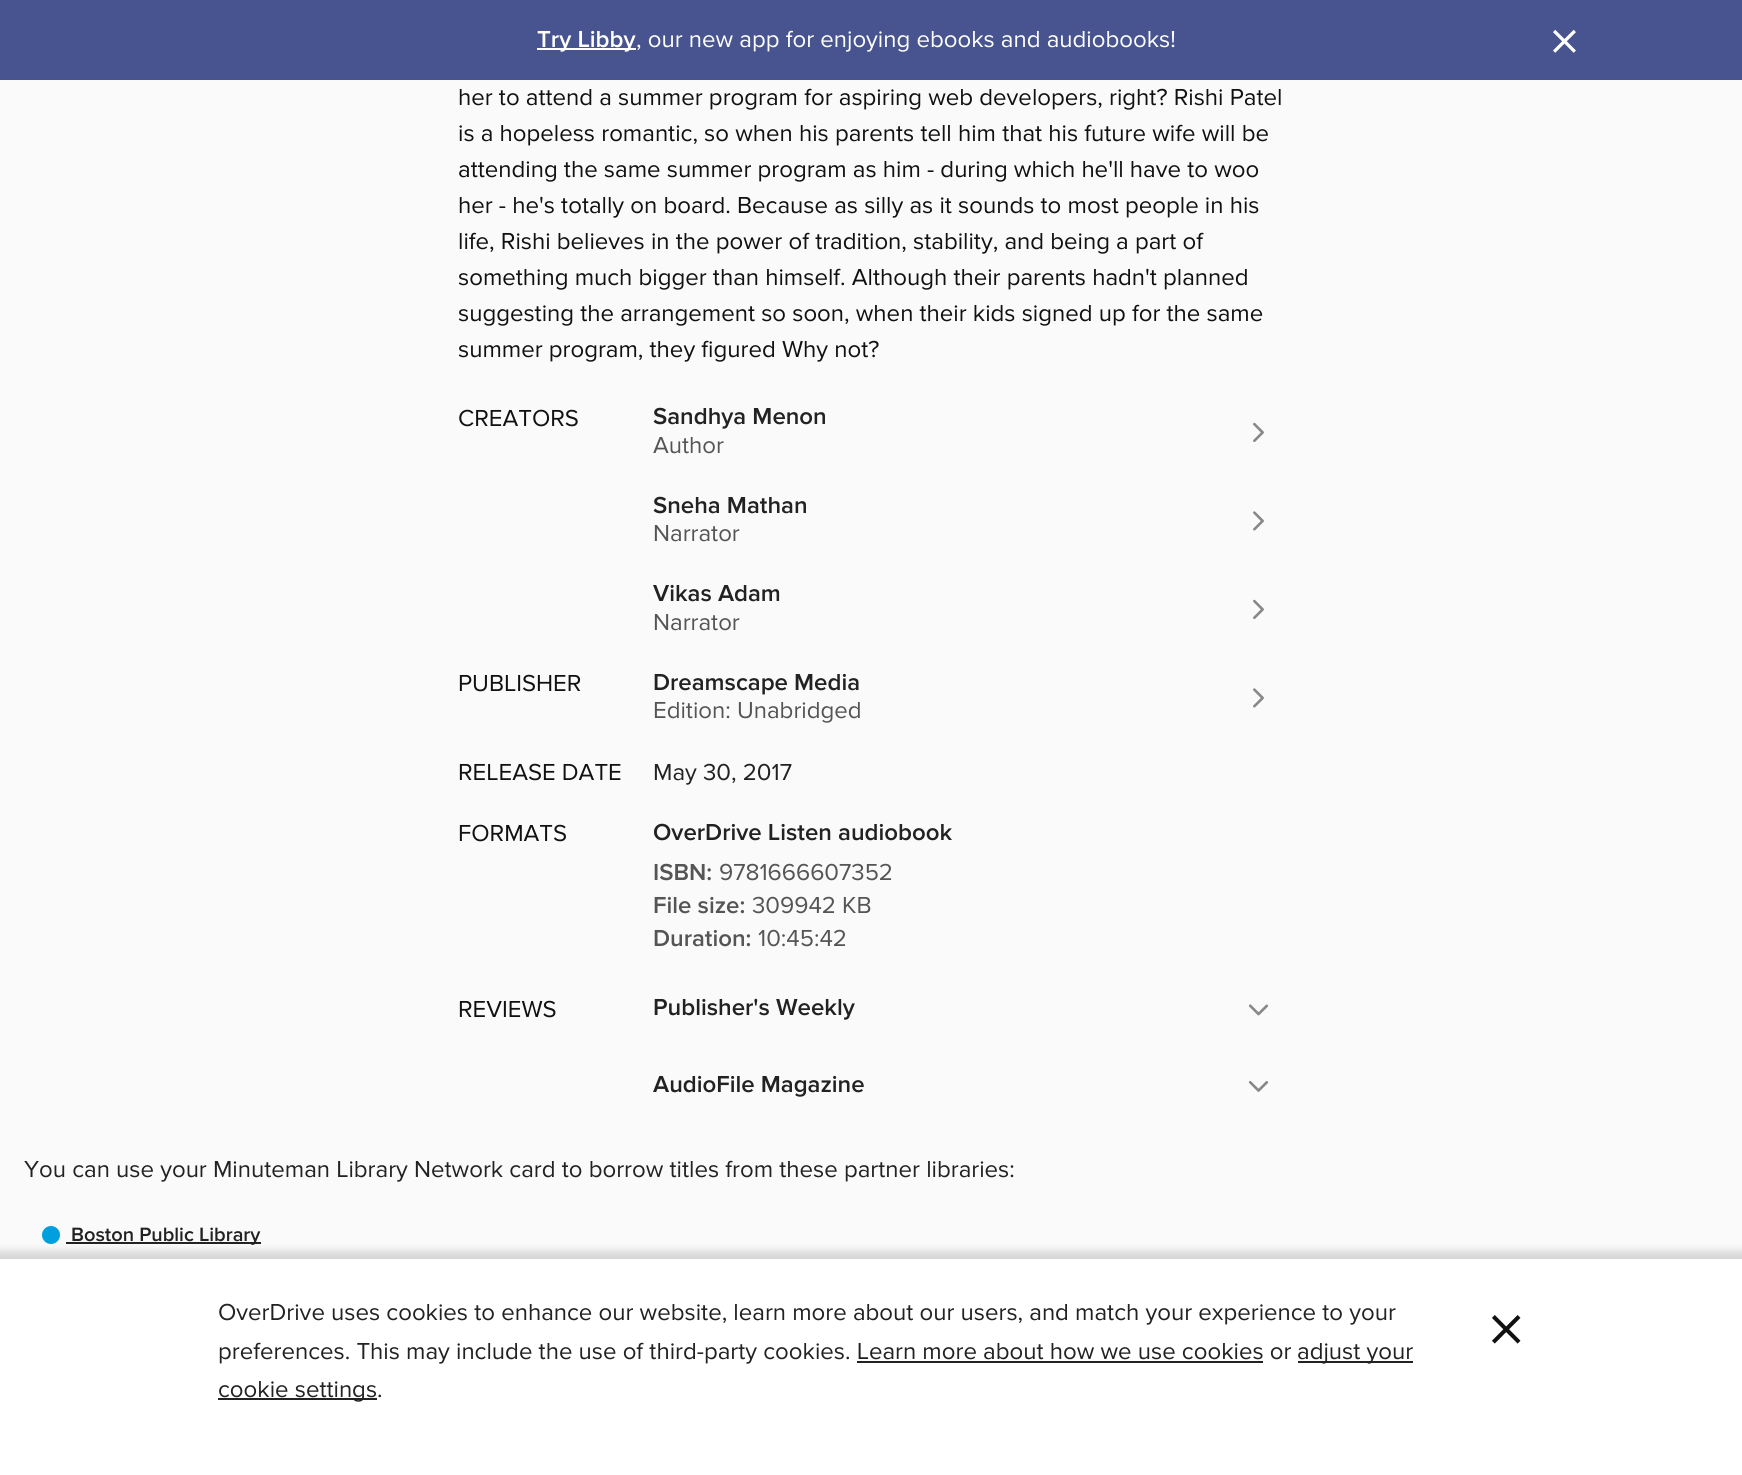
#include <cairo.h>
#include <math.h>
#include <stddef.h>

static cairo_t *c;
static void C(unsigned color){cairo_set_source_rgb(c, (color >> 16) / 255.0, (color >> 8 & 255) / 255.0, (color & 255) / 255.0);}
static void F(const char *family, double size, int italic, int bold){cairo_select_font_face(c, family, italic ? CAIRO_FONT_SLANT_ITALIC : CAIRO_FONT_SLANT_NORMAL,bold ? CAIRO_FONT_WEIGHT_BOLD : CAIRO_FONT_WEIGHT_NORMAL);cairo_set_font_size(c, size);}
static void T(double x, double y, const char *s){cairo_move_to(c, x, y);cairo_show_text(c, s);}
static void R(double x, double y, double w, double h){cairo_rectangle(c, x, y, w, h);cairo_fill(c);}
static void Q(double x, double y, double w, double h, double r){cairo_new_sub_path(c);cairo_arc(c, x + w - r, y + h - r, r, 0, M_PI / 2);cairo_arc(c, x + r, y + h - r, r, M_PI / 2, M_PI);cairo_arc(c, x + r, y + r, r, M_PI, 1.5 * M_PI);cairo_arc(c, x + w - r, y + r, r, 1.5 * M_PI, 2 * M_PI);cairo_close_path(c);}
static void S(double x, double y, double w, double h, double r, double blur, double alpha){cairo_push_group_with_content(c, CAIRO_CONTENT_ALPHA);cairo_set_operator(c, CAIRO_OPERATOR_SOURCE);for (int i = 15; i >= -15 && fmin(w, h) + blur * i / 3 > 0; i -= 2) {double e = blur * i / 6;cairo_set_source_rgba(c, 0, 0, 0, alpha * erfc((i - 1) / 8.5) / 2);Q(x - e, y - e, w + 2 * e, h + 2 * e, fmax(0, fmin(r + e + blur * .6, fmin(w, h) / 2 + e)));cairo_fill(c);}cairo_pattern_t *soft = cairo_pop_group(c);cairo_mask(c, soft);cairo_pattern_destroy(soft);}
static void I(const char *path, double x, double y, double w, double h){cairo_surface_t *image = cairo_image_surface_create_from_png(path);cairo_save(c);cairo_set_source_surface(c, image, x, y);cairo_rectangle(c, x, y, w, h);cairo_fill(c);cairo_restore(c);cairo_surface_destroy(image);}
int main(void) {
cairo_surface_t *surface = cairo_image_surface_create(CAIRO_FORMAT_RGB24, 1742, 1475);
c = cairo_create(surface);
cairo_font_options_t *options = cairo_font_options_create();
cairo_font_options_set_hint_metrics(options, CAIRO_HINT_METRICS_OFF);
cairo_font_options_set_hint_style(options, CAIRO_HINT_STYLE_NONE);
cairo_set_font_options(c, options);
cairo_set_miter_limit(c, 4);
C(0xfafafa);
cairo_paint(c);
C(0x47548f);
R(0,0,1742,80);
C(0xffffff);
R(537,48,99,2);
F("Proxima Nova SemiBold",24,0,0);
T(537,47,"Try Libby");
F("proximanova",24,0,0);
T(636,47,", our new app for enjoying ebooks and audiobooks!");
F("proximanova",62,0,0);
T(1549,62,"×");
F("proximanova",24,0,0);
C(0x111111);
T(458,105,"her to attend a summer program for aspiring web developers, right? Rishi Patel");
T(458,141,"is a hopeless romantic, so when his parents tell him that his future wife will be");
T(458,177,"attending the same summer program as him - during which he'll have to woo");
T(458,213,"her - he's totally on board. Because as silly as it sounds to most people in his");
T(458,249,"life, Rishi believes in the power of tradition, stability, and being a part of");
T(458,285,"something much bigger than himself. Although their parents hadn't planned");
T(458,321,"suggesting the arrangement so soon, when their kids signed up for the same");
T(458,357,"summer program, they figured Why not?");
T(458,426,"CREATORS");
F("Proxima Nova SemiBold",24,0,0);
C(0x222222);
T(653,424,"Sandhya Menon");
F("proximanova",24,0,0);
C(0x555555);
T(653,453,"Author");
I("1.png",1253,422,11,20);
F("Proxima Nova SemiBold",24,0,0);
C(0x222222);
T(653,513,"Sneha Mathan");
F("proximanova",24,0,0);
C(0x555555);
T(653,541,"Narrator");
I("2.png",1253,511,11,20);
F("Proxima Nova SemiBold",24,0,0);
C(0x222222);
T(653,601,"Vikas Adam");
F("proximanova",24,0,0);
C(0x555555);
T(653,630,"Narrator");
I("1.png",1253,599,11,20);
C(0x111111);
T(458,691,"PUBLISHER");
F("Proxima Nova SemiBold",24,0,0);
C(0x222222);
T(653,690,"Dreamscape Media");
F("proximanova",24,0,0);
C(0x555555);
T(653,718,"Edition: Unabridged");
I("2.png",1253,688,11,20);
C(0x111111);
T(458,780,"RELEASE DATE");
C(0x222222);
T(653,780,"May 30, 2017");
C(0x111111);
T(458,841,"FORMATS");
F("Proxima Nova SemiBold",24,0,0);
C(0x222222);
T(653,840,"OverDrive Listen audiobook");
C(0x555555);
T(653,880,"ISBN:");
F("proximanova",24,0,0);
T(719,880,"9781666607352");
F("Proxima Nova SemiBold",24,0,0);
T(653,913,"File size:");
F("proximanova",24,0,0);
T(752,913,"309942 KB");
F("Proxima Nova SemiBold",24,0,0);
T(653,946,"Duration:");
F("proximanova",24,0,0);
T(758,946,"10:45:42");
C(0x111111);
T(458,1017,"REVIEWS");
F("Proxima Nova SemiBold",24,0,0);
C(0x222222);
T(653,1015,"Publisher's Weekly");
I("3.png",1248,1004,21,12);
T(653,1092,"AudioFile Magazine");
I("4.png",1248,1081,21,11);
F("proximanova",24,0,0);
T(24,1177,"You can use your Minuteman Library Network card to borrow titles from these partner libraries:");
C(0x009fde);
cairo_new_path(c);
cairo_arc(c,51,1235,9,0,2 * M_PI);
cairo_fill(c);
C(0x222222);
R(66,1242,195,2);
F("Proxima Nova SemiBold",20,0,0);
T(71,1241,"Boston Public Library");
C(0x000000);
S(-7,1251,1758,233,0,4,.15);
C(0xffffff);
R(0,1259,1742,216);
F("proximanova",24,0,0);
C(0x222222);
T(218,1320,"OverDrive uses cookies to enhance our website, learn more about our users, and match your experience to your");
T(218,1359,"preferences. This may include the use of third-party cookies. Learn more about how we use cookies or");
R(857,1361,406,2);
R(1298,1361,115,2);
T(1297,1359,"adjust your");
R(218,1398,159,2);
T(218,1397,"cookie settings.");
F("proximanova",77,0,0);
C(0x111111);
T(1487,1355,"×");
cairo_surface_write_to_png(surface, "o.png");
cairo_font_options_destroy(options);
cairo_destroy(c);
cairo_surface_destroy(surface);
return 0;
}
